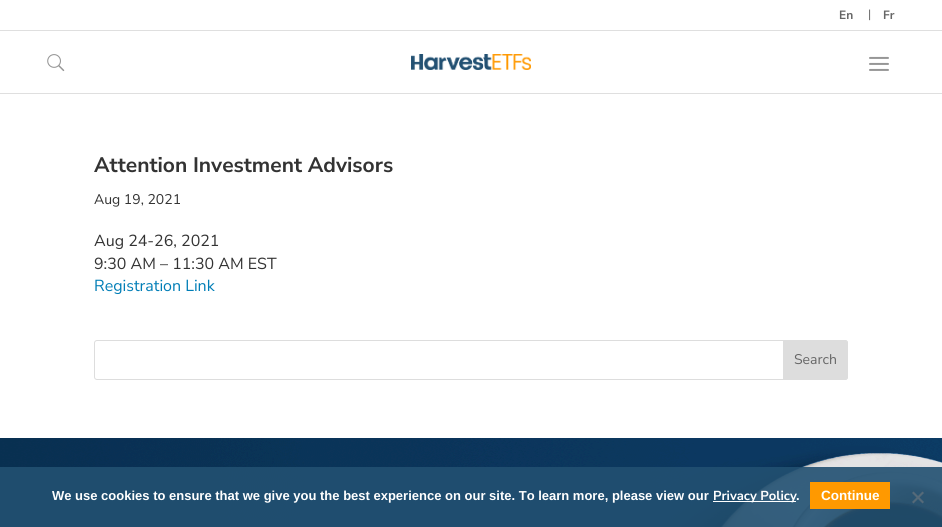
#include <cairo.h>
#include <math.h>
#include <stddef.h>

static cairo_t *c;
static void C(unsigned color){cairo_set_source_rgb(c, (color >> 16) / 255.0, (color >> 8 & 255) / 255.0, (color & 255) / 255.0);}
static void F(const char *family, double size, int italic, int bold){cairo_select_font_face(c, family, italic ? CAIRO_FONT_SLANT_ITALIC : CAIRO_FONT_SLANT_NORMAL,bold ? CAIRO_FONT_WEIGHT_BOLD : CAIRO_FONT_WEIGHT_NORMAL);cairo_set_font_size(c, size);}
static void T(double x, double y, const char *s){cairo_move_to(c, x, y);cairo_show_text(c, s);}
static void R(double x, double y, double w, double h){cairo_rectangle(c, x, y, w, h);cairo_fill(c);}
static void Q(double x, double y, double w, double h, double r){cairo_new_sub_path(c);cairo_arc(c, x + w - r, y + h - r, r, 0, M_PI / 2);cairo_arc(c, x + r, y + h - r, r, M_PI / 2, M_PI);cairo_arc(c, x + r, y + r, r, M_PI, 1.5 * M_PI);cairo_arc(c, x + w - r, y + r, r, 1.5 * M_PI, 2 * M_PI);cairo_close_path(c);}
static void I(const char *path, double x, double y, double w, double h){cairo_surface_t *image = cairo_image_surface_create_from_png(path);cairo_save(c);cairo_set_source_surface(c, image, x, y);cairo_rectangle(c, x, y, w, h);cairo_fill(c);cairo_restore(c);cairo_surface_destroy(image);}
int main(void) {
cairo_surface_t *surface = cairo_image_surface_create(CAIRO_FORMAT_RGB24, 942, 527);
c = cairo_create(surface);
cairo_font_options_t *options = cairo_font_options_create();
cairo_font_options_set_hint_metrics(options, CAIRO_HINT_METRICS_OFF);
cairo_font_options_set_hint_style(options, CAIRO_HINT_STYLE_NONE);
cairo_set_font_options(c, options);
cairo_set_miter_limit(c, 4);
C(0xffffff);
cairo_paint(c);
C(0xdfdfdf);
R(0,30,942,1);
F("Nunito Sans",12,0,1);
C(0x666666);
T(839,19,"En");
F("Nunito Sans",12,0,0);
T(868,18,"|");
F("Nunito Sans",12,0,1);
T(883,19,"Fr");
C(0xdfdfdf);
R(0,93,942,1);
I("1.png",47,54,18,18);
I("2.png",869,56,20,15);
I("3.png",411,54,120,16);
F("Nunito Sans",21,0,1);
C(0x333333);
T(94,172,"Attention Investment Advisors");
F("Nunito Sans",14,0,0);
T(94,204,"Aug 19, 2021");
F("Nunito Sans",16,0,0);
T(94,246,"Aug 24-26, 2021");
T(94,269,"9:30 AM – 11:30 AM EST");
C(0x007db6);
T(94,291,"Registration Link");
Q(94.5,340.5,753,39,2.5);
C(0xdddddd);
cairo_set_line_width(c,1);
cairo_stroke(c);
cairo_new_path(c);
cairo_move_to(c,783.5,340.5);
cairo_line_to(c,845,340.5);
cairo_curve_to(c,846.5,340.5,847.5,341.5,847.5,343);
cairo_line_to(c,847.5,377);
cairo_curve_to(c,847.5,378.5,846.5,379.5,845,379.5);
cairo_line_to(c,783.5,379.5);
cairo_close_path(c);
cairo_fill_preserve(c);
cairo_stroke(c);
F("Nunito Sans",14,0,0);
C(0x666666);
T(794,364,"Search");
I("4.png",0,438,942,89);
cairo_set_source_rgba(c,0.133,0.314,0.447,0.9);
R(0,467,942,60);
F("Liberation Sans",13,0,1);
C(0xffffff);
T(52,500,"We use cookies to ensure that we give you the best experience on our site. To learn more, please view our");
R(713,501,83,1);
F("Nunito Sans",13,0,1);
T(713,500,"Privacy Policy");
F("Liberation Sans",13,0,1);
T(796,500,".");
C(0xff9900);
R(810,482,80,27);
F("Liberation Sans",13.5,0,1);
C(0xffffff);
T(821,500,"Continue");
cairo_set_source_rgba(c,0.502,0.502,0.502,0.5);
cairo_new_path(c);
cairo_move_to(c,922.5,491.5);
cairo_line_to(c,924,493);
cairo_line_to(c,913.5,503.5);
cairo_line_to(c,912,502);
cairo_close_path(c);
cairo_fill(c);
C(0x566a79);
cairo_new_path(c);
cairo_move_to(c,912,493);
cairo_line_to(c,913.5,491.5);
cairo_line_to(c,924,502);
cairo_line_to(c,922.5,503.5);
cairo_close_path(c);
cairo_fill(c);
cairo_surface_write_to_png(surface, "o.png");
cairo_font_options_destroy(options);
cairo_destroy(c);
cairo_surface_destroy(surface);
return 0;
}
